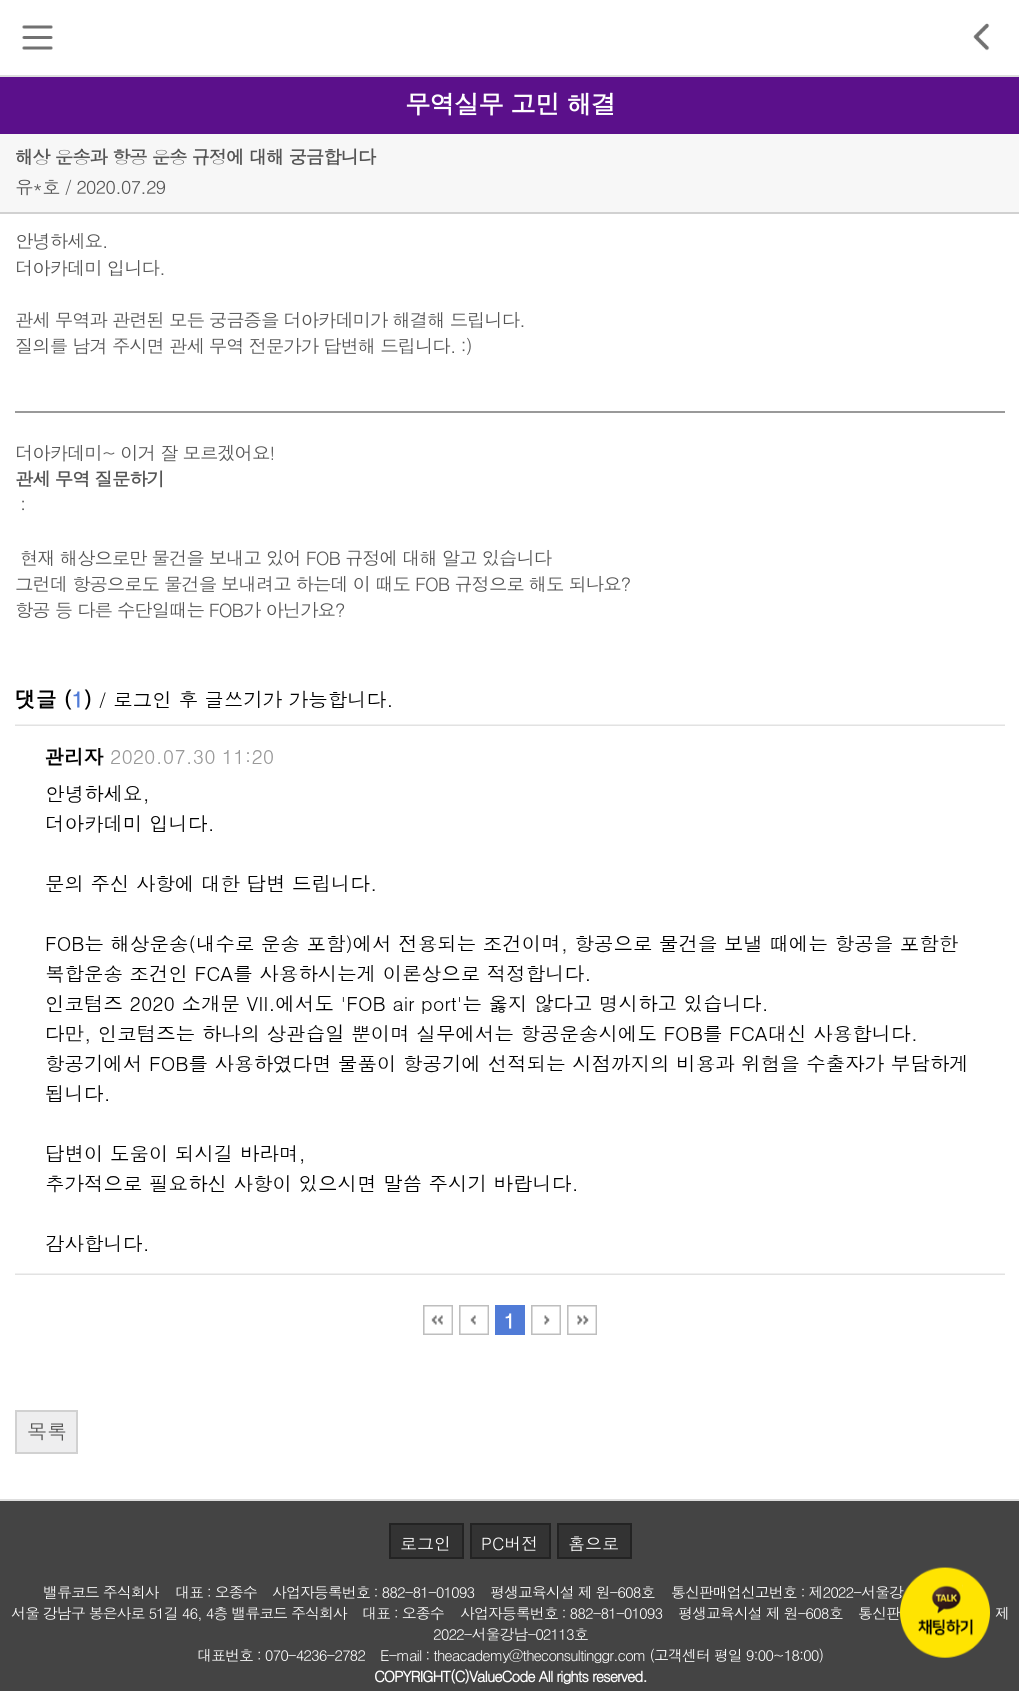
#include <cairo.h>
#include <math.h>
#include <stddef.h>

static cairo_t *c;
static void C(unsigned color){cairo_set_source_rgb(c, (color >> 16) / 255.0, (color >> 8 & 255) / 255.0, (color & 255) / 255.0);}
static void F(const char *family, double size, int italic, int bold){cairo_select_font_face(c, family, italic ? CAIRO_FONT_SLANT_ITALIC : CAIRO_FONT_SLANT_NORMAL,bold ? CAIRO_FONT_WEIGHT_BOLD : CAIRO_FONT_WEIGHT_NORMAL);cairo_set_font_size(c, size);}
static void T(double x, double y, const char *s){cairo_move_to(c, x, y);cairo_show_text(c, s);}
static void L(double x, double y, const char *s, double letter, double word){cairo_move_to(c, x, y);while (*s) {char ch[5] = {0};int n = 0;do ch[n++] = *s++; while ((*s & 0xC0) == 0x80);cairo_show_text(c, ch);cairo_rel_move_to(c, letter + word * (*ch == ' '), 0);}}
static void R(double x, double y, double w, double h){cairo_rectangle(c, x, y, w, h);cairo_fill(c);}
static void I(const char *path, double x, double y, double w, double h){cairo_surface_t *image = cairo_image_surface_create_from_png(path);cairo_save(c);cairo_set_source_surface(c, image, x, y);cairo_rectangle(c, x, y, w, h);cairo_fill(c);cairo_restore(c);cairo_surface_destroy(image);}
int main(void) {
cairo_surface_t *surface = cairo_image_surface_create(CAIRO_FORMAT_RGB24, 1019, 1691);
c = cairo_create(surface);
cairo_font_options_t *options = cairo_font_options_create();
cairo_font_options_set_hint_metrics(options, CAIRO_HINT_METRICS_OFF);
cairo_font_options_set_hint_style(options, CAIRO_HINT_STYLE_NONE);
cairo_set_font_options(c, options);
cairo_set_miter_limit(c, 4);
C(0xffffff);
cairo_paint(c);
C(0xdedede);
R(0,75,1019,2);
I("1.png",22,25,31,25);
I("2.png",973,23,17,28);
C(0x5b108b);
R(0,77,1019,57);
F("Dotum",25.5,0,1);
C(0xffffff);
L(405,114,"무역실무 고민 해결",-1.05,0);
C(0xf7f7f7);
R(0,134,1019,78);
C(0xd1d1d1);
R(0,212,1019,2);
F("Dotum",18.4,0,1);
C(0x555555);
L(15,164,"해상 운송과 항공 운송 규정에 대해 궁금합니다",-1.05,0);
F("Dotum",18.4,0,0);
L(15,194,"유*호 / 2020.07.29",-1.05,0);
L(15,248,"안녕하세요.",-1.05,0);
L(15,275,"더아카데미 입니다.",-1.05,0);
L(15,327,"관세 무역과 관련된 모든 궁금증을 더아카데미가 해결해 드립니다.",-1.05,0);
L(15,353,"질의를 남겨 주시면 관세 무역 전문가가 답변해 드립니다. :)",-1.05,0);
C(0x999999);
R(15,411,990,2);
C(0x555555);
L(15,460,"더아카데미~ 이거 잘 모르겠어요!",-1.05,0);
F("Dotum",18.4,0,1);
L(15,486,"관세 무역 질문하기",-1.05,0);
F("Dotum",18.4,0,0);
L(20,512,":",-1.05,0);
L(20,565,"현재 해상으로만 물건을 보내고 있어 FOB 규정에 대해 알고 있습니다",-1.05,0);
L(15,591,"그런데 항공으로도 물건을 보내려고 하는데 이 때도 FOB 규정으로 해도 되나요?",-1.05,0);
L(15,617,"항공 등 다른 수단일때는 FOB가 아닌가요?",-1.05,0);
I("3.png",15,689,990,646);
C(0xeeeeef);
cairo_rectangle(c,16,1411,61,42);
cairo_fill_preserve(c);
C(0xd1d1d1);
cairo_stroke(c);
F("Dotum",20,0,0);
C(0x555555);
T(27,1439,"목록");
C(0x444444);
R(0,1501,1019,190);
C(0xdedede);
R(0,1499,1019,2);
C(0x333333);
cairo_rectangle(c,390,1524,73,34);
cairo_fill_preserve(c);
C(0x232323);
cairo_stroke(c);
F("Dotum",17,0,0);
C(0xffffff);
T(400,1550,"로그인");
C(0x333333);
cairo_rectangle(c,471,1524,79,34);
cairo_fill_preserve(c);
C(0x232323);
cairo_stroke(c);
C(0xffffff);
T(481,1550,"PC버전");
C(0x333333);
cairo_rectangle(c,558,1524,73,34);
cairo_fill_preserve(c);
C(0x232323);
cairo_stroke(c);
C(0xffffff);
T(568,1550,"홈으로");
F("Dotum",15,0,0);
L(43,1598,"밸류코드 주식회사",-1.05,0);
L(175,1598,"대표 : 오종수",-1.05,0);
L(272,1598,"사업자등록번호 : 882-81-01093",-1.05,0);
L(490,1598,"평생교육시설 제 원-608호",-1.05,0);
L(671,1598,"통신판매업신고번호 : 제2022-서울강",-1.05,0);
L(11,1619,"서울 강남구 봉은사로 51길 46, 4층 밸류코드 주식회사",-1.05,0);
L(362,1619,"대표 : 오종수",-1.05,0);
L(460,1619,"사업자등록번호 : 882-81-01093",-1.05,0);
L(678,1619,"평생교육시설 제 원-608호",-1.05,0);
L(858,1619,"통신판",-1.05,0);
L(995,1619,"제",-1.05,0);
L(433,1640,"2022-서울강남-02113호",-1.05,0);
L(197,1661,"대표번호 : 070-4236-2782",-1.05,0);
L(380,1661,"E-mail : theacademy@theconsultinggr.com (고객센터 평일 9:00~18:00)",-1.05,0);
F("Dotum",15,0,1);
L(374,1682,"COPYRIGHT(C)ValueCode All rights reserved.",-1.05,0);
I("4.png",900,1567,90,91);
cairo_surface_write_to_png(surface, "o.png");
cairo_font_options_destroy(options);
cairo_destroy(c);
cairo_surface_destroy(surface);
return 0;
}
